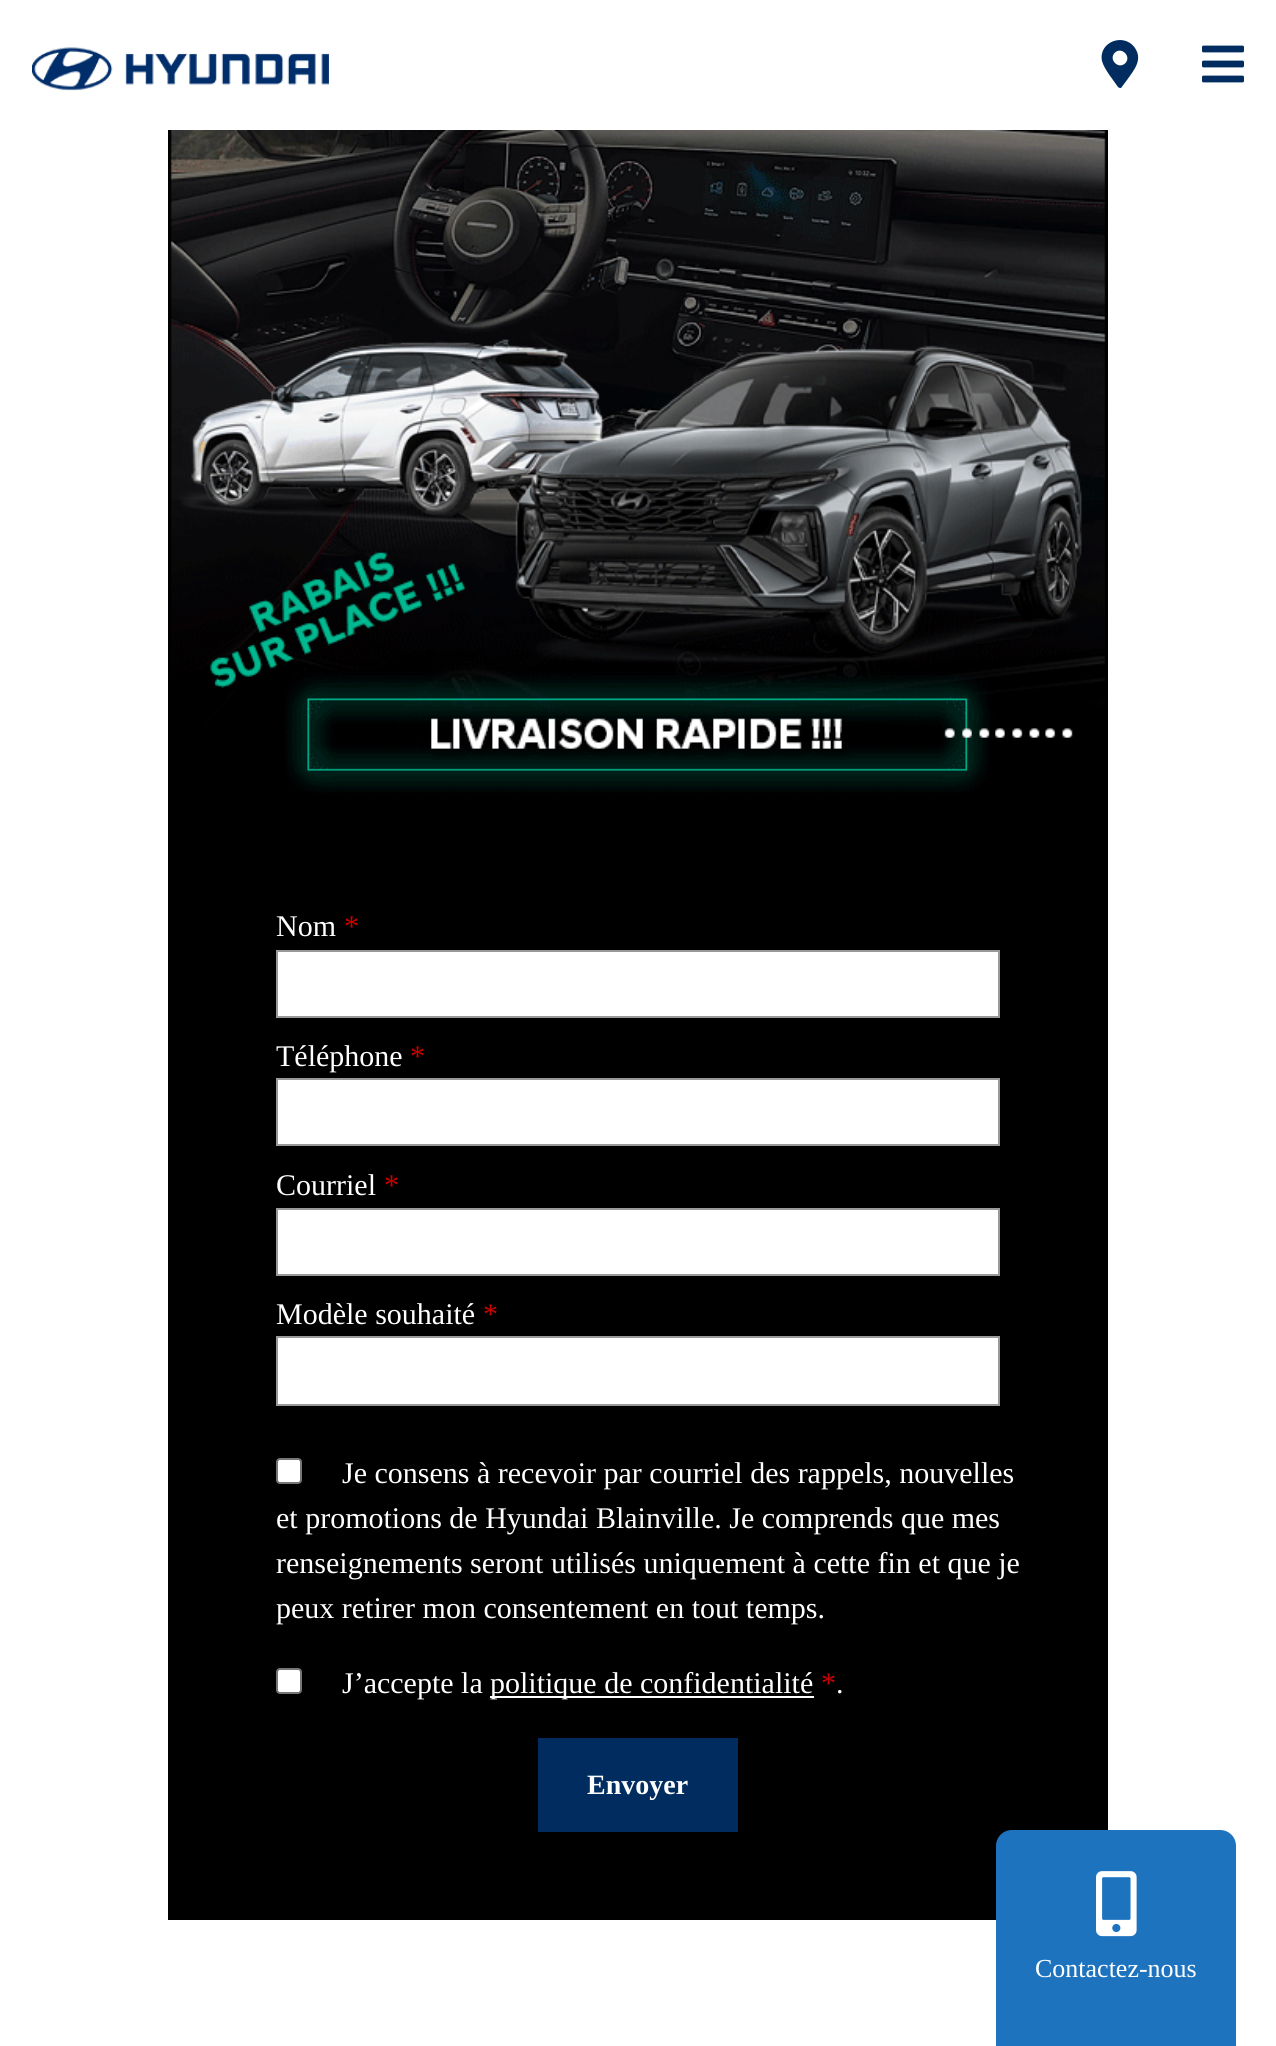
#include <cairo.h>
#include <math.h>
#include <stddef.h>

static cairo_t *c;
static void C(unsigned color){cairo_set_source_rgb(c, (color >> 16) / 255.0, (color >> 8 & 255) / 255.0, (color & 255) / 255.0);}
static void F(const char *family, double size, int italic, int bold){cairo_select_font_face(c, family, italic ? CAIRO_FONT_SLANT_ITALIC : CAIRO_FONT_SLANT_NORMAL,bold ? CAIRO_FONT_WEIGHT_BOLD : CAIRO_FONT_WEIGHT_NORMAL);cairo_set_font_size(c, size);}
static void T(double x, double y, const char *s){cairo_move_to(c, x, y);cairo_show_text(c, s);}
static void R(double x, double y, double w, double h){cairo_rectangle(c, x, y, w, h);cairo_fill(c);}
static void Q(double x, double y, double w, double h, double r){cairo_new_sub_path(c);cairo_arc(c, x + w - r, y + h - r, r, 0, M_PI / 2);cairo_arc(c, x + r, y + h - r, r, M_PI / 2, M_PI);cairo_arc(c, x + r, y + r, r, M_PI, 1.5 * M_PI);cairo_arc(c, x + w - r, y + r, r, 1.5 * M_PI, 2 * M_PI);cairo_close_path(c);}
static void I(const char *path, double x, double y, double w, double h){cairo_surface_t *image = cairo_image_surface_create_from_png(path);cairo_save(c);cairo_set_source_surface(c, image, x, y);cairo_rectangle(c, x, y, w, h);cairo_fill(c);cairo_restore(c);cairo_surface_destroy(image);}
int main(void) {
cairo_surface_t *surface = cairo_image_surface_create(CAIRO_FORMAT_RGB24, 1276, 2046);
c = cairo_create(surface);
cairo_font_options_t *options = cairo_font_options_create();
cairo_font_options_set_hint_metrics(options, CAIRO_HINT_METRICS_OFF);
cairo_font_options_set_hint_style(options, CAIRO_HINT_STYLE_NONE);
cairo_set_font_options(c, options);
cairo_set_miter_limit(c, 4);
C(0xffffff);
cairo_paint(c);
I("1.png",32,47,297,44);
C(0x002c5f);
cairo_new_path(c);
cairo_move_to(c,1118,87);
cairo_curve_to(c,1114,81,1104,69,1102,61);
cairo_curve_to(c,1098,42,1124,32,1135,48);
cairo_curve_to(c,1143,60,1134,70,1127,80);
cairo_line_to(c,1121,88);
cairo_curve_to(c,1120,88,1119,88,1118,87);
cairo_close_path(c);
cairo_move_to(c,1115,63);
cairo_curve_to(c,1122,70,1132,60,1125,53);
cairo_curve_to(c,1118,46,1108,56,1115,63);
cairo_close_path(c);
cairo_fill(c);
I("2.png",1202,45,42,38);
C(0x000000);
R(168,130,940,1790);
I("3.png",169,130,937,663);
F("Liberation Serif",30,0,0);
C(0xffffff);
T(276,936,"Nom");
C(0xcc0001);
T(344,936,"*");
C(0xffffff);
cairo_rectangle(c,277,951,722,66);
cairo_fill_preserve(c);
C(0x999999);
cairo_stroke(c);
C(0xffffff);
T(276,1066,"Téléphone");
C(0xcc0001);
T(410,1066,"*");
C(0xffffff);
cairo_rectangle(c,277,1079,722,66);
cairo_fill_preserve(c);
C(0x999999);
cairo_stroke(c);
C(0xffffff);
T(276,1195,"Courriel");
C(0xcc0001);
T(384,1195,"*");
C(0xffffff);
cairo_rectangle(c,277,1209,722,66);
cairo_fill_preserve(c);
C(0x999999);
cairo_stroke(c);
C(0xffffff);
T(276,1324,"Modèle souhaité");
C(0xcc0001);
T(483,1324,"*");
C(0xffffff);
cairo_rectangle(c,277,1337,722,68);
cairo_fill_preserve(c);
C(0x999999);
cairo_stroke(c);
C(0xffffff);
Q(277,1459,24,24,3);
cairo_fill_preserve(c);
C(0x767676);
cairo_stroke(c);
C(0xffffff);
T(342,1483,"Je consens à recevoir par courriel des rappels, nouvelles");
T(276,1528,"et promotions de Hyundai Blainville. Je comprends que mes");
T(276,1573,"renseignements seront utilisés uniquement à cette fin et que je");
T(276,1618,"peux retirer mon consentement en tout temps.");
Q(277,1669,24,24,3);
cairo_fill_preserve(c);
C(0x767676);
cairo_stroke(c);
C(0xffffff);
T(342,1693,"J’accepte la");
R(490,1696,324,2);
T(490,1693,"politique de confidentialité");
C(0xcc0001);
T(821,1693,"*");
C(0xffffff);
T(836,1693,".");
C(0x002c5f);
R(538,1738,200,94);
F("Liberation Serif",28,0,1);
C(0xffffff);
T(587,1794,"Envoyer");
C(0x1e73be);
cairo_new_path(c);
cairo_move_to(c,1012,1830);
cairo_line_to(c,1220,1830);
cairo_curve_to(c,1229,1830,1236,1837,1236,1846);
cairo_line_to(c,1236,2046);
cairo_line_to(c,996,2046);
cairo_line_to(c,996,1846);
cairo_curve_to(c,996,1837,1003,1830,1012,1830);
cairo_close_path(c);
cairo_fill(c);
I("4.png",1096,1871,41,66);
F("Liberation Serif",26,0,0);
C(0xffffff);
T(1035,1977,"Contactez-nous");
cairo_surface_write_to_png(surface, "o.png");
cairo_font_options_destroy(options);
cairo_destroy(c);
cairo_surface_destroy(surface);
return 0;
}
